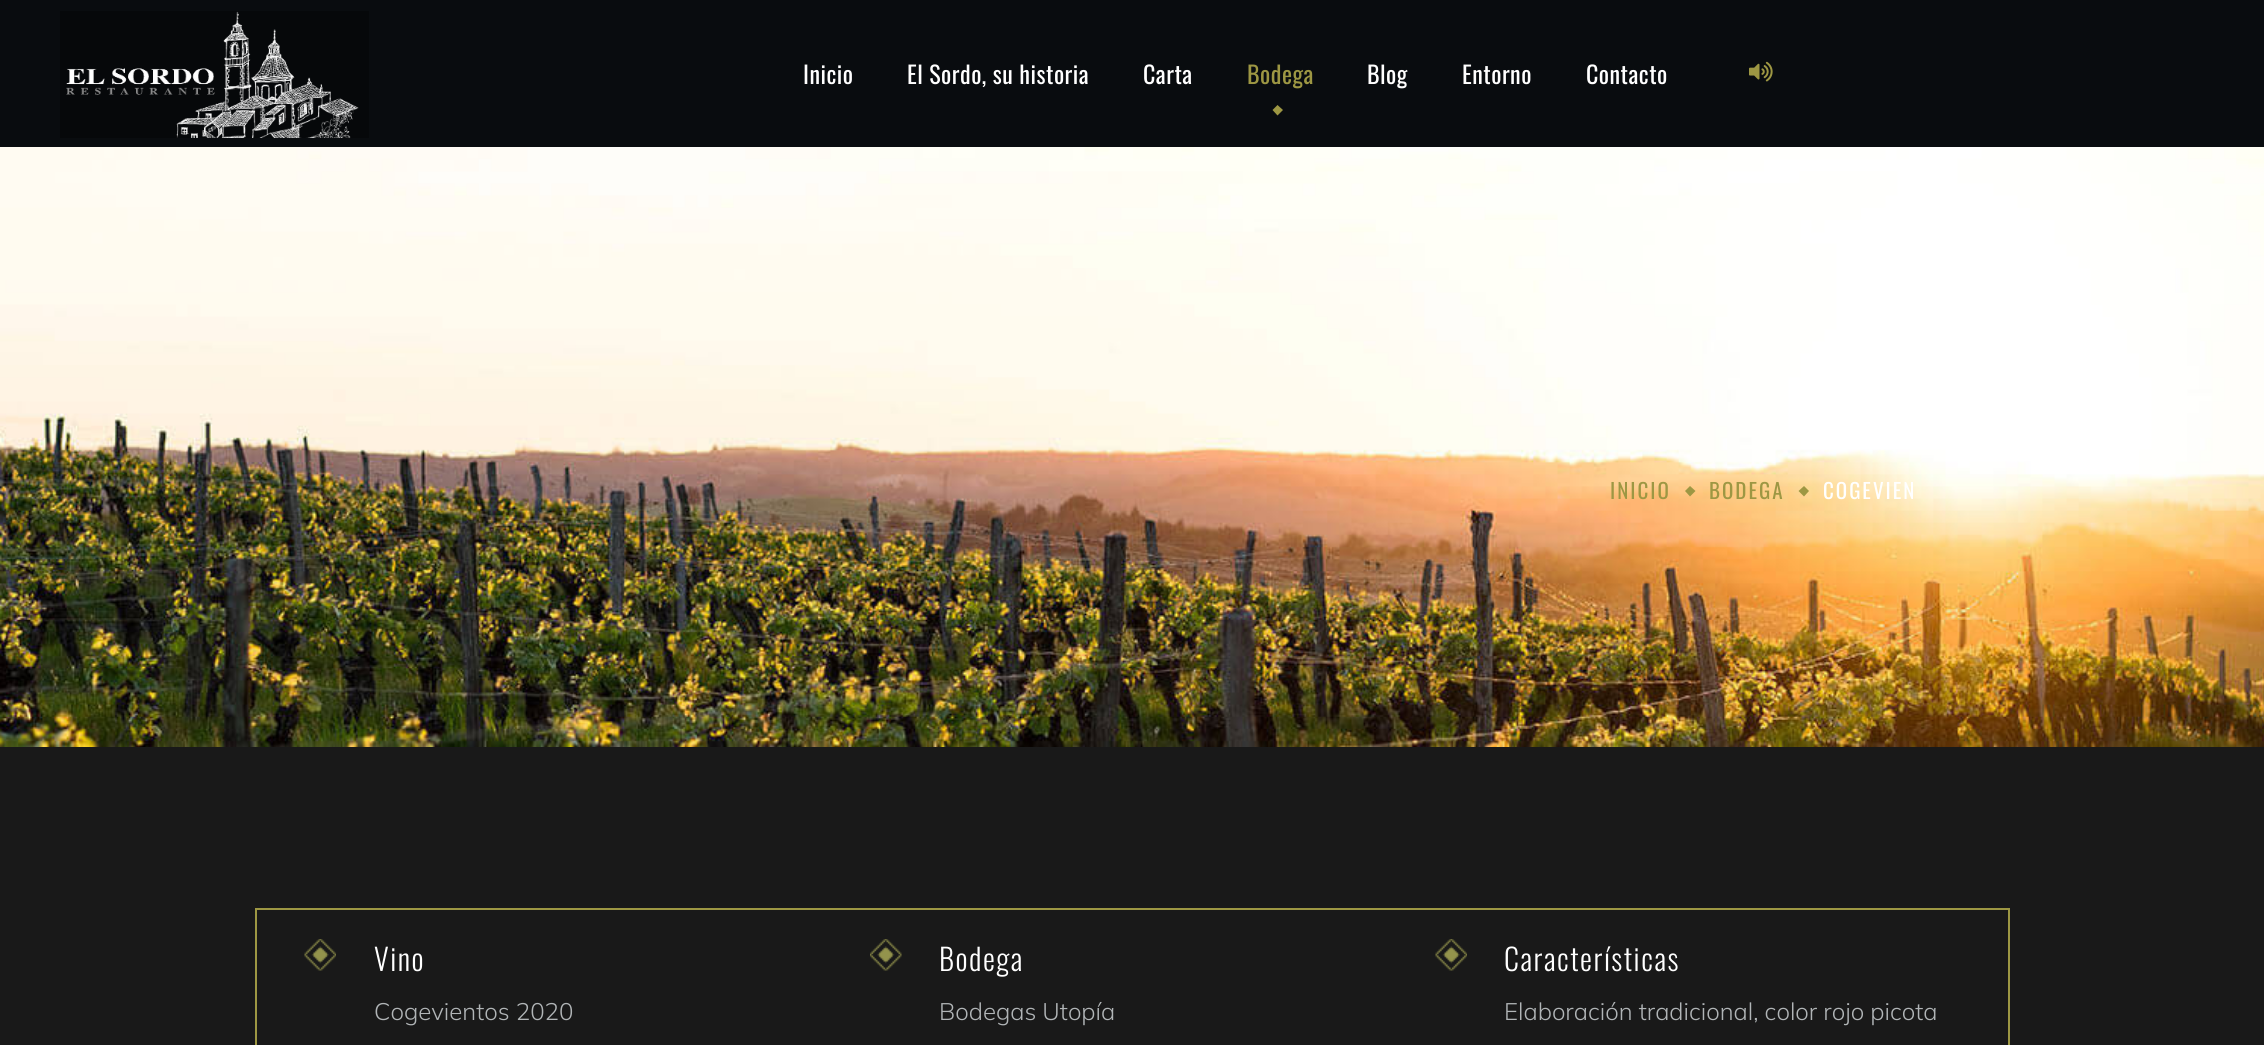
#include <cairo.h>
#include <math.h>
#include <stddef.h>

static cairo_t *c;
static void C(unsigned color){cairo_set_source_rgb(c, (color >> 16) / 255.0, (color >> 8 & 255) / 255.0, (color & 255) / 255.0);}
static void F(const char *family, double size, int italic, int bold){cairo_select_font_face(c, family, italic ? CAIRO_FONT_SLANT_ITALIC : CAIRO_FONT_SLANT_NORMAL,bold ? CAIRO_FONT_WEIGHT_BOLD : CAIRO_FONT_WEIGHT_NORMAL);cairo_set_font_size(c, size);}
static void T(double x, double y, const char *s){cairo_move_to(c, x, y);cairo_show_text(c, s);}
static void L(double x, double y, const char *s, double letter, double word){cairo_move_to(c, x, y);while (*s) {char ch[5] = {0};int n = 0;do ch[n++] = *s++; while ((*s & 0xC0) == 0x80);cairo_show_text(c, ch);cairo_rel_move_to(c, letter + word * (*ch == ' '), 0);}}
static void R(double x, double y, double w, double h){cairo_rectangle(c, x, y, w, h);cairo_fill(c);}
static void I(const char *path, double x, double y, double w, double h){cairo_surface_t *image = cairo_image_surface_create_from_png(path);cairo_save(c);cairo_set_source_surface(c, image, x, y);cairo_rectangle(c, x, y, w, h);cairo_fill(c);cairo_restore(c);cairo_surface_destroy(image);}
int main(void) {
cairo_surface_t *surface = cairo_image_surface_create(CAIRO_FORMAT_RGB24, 2264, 1045);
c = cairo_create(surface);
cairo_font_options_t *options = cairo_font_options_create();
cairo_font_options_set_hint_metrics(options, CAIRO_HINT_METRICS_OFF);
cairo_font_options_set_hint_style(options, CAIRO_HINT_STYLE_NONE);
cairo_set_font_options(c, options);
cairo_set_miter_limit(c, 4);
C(0x191919);
cairo_paint(c);
C(0x090c0f);
R(0,0,2264,147);
I("1.png",60,11,309,127);
F("Oswald",24,0,0);
C(0xffffff);
L(803,84,"Inicio",.5,0);
L(907,84,"El Sordo, su historia",.5,0);
L(1143,84,"Carta",.5,0);
C(0x9d9743);
L(1247,84,"Bodega",.5,0);
cairo_new_path(c);
cairo_move_to(c,1277.5,105);
cairo_line_to(c,1283,110);
cairo_line_to(c,1277.5,115.5);
cairo_line_to(c,1272.5,110);
cairo_close_path(c);
cairo_fill(c);
C(0xffffff);
L(1367,84,"Blog",.5,0);
L(1462,84,"Entorno",.5,0);
L(1586,84,"Contacto",.5,0);
I("2.png",1749,61,24,21);
I("3.png",0,147,2264,600);
F("Oswald",21,0,0);
C(0x9d9743);
L(1610,499,"INICIO",2,0);
cairo_new_path(c);
cairo_move_to(c,1690,486);
cairo_line_to(c,1695.5,491);
cairo_line_to(c,1690,496.5);
cairo_line_to(c,1685,491);
cairo_close_path(c);
cairo_fill(c);
L(1709,499,"BODEGA",2,0);
cairo_new_path(c);
cairo_move_to(c,1804,486);
cairo_line_to(c,1809,491);
cairo_line_to(c,1804,496.5);
cairo_line_to(c,1798.5,491);
cairo_close_path(c);
cairo_fill(c);
C(0xffffff);
L(1823,499,"COGEVIEN",2,0);
cairo_rectangle(c,256,909,1753,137);
C(0x9d9743);
cairo_stroke(c);
I("4.png",304,939,32,32);
F("Oswald Light",30,0,0);
C(0xffffff);
L(374,971,"Vino",1.5,0);
F("Mulish Light",24,0,0);
C(0xb1b5b7);
T(374,1020,"Cogevientos 2020");
I("5.png",870,939,32,32);
F("Oswald Light",30,0,0);
C(0xffffff);
L(939,971,"Bodega",1.5,0);
F("Mulish Light",24,0,0);
C(0xb1b5b7);
T(939,1020,"Bodegas Utopía");
I("6.png",1435,939,32,32);
F("Oswald Light",30,0,0);
C(0xffffff);
L(1504,971,"Características",1.5,0);
F("Mulish Light",24,0,0);
C(0xb1b5b7);
T(1504,1020,"Elaboración tradicional, color rojo picota");
cairo_surface_write_to_png(surface, "o.png");
cairo_font_options_destroy(options);
cairo_destroy(c);
cairo_surface_destroy(surface);
return 0;
}
